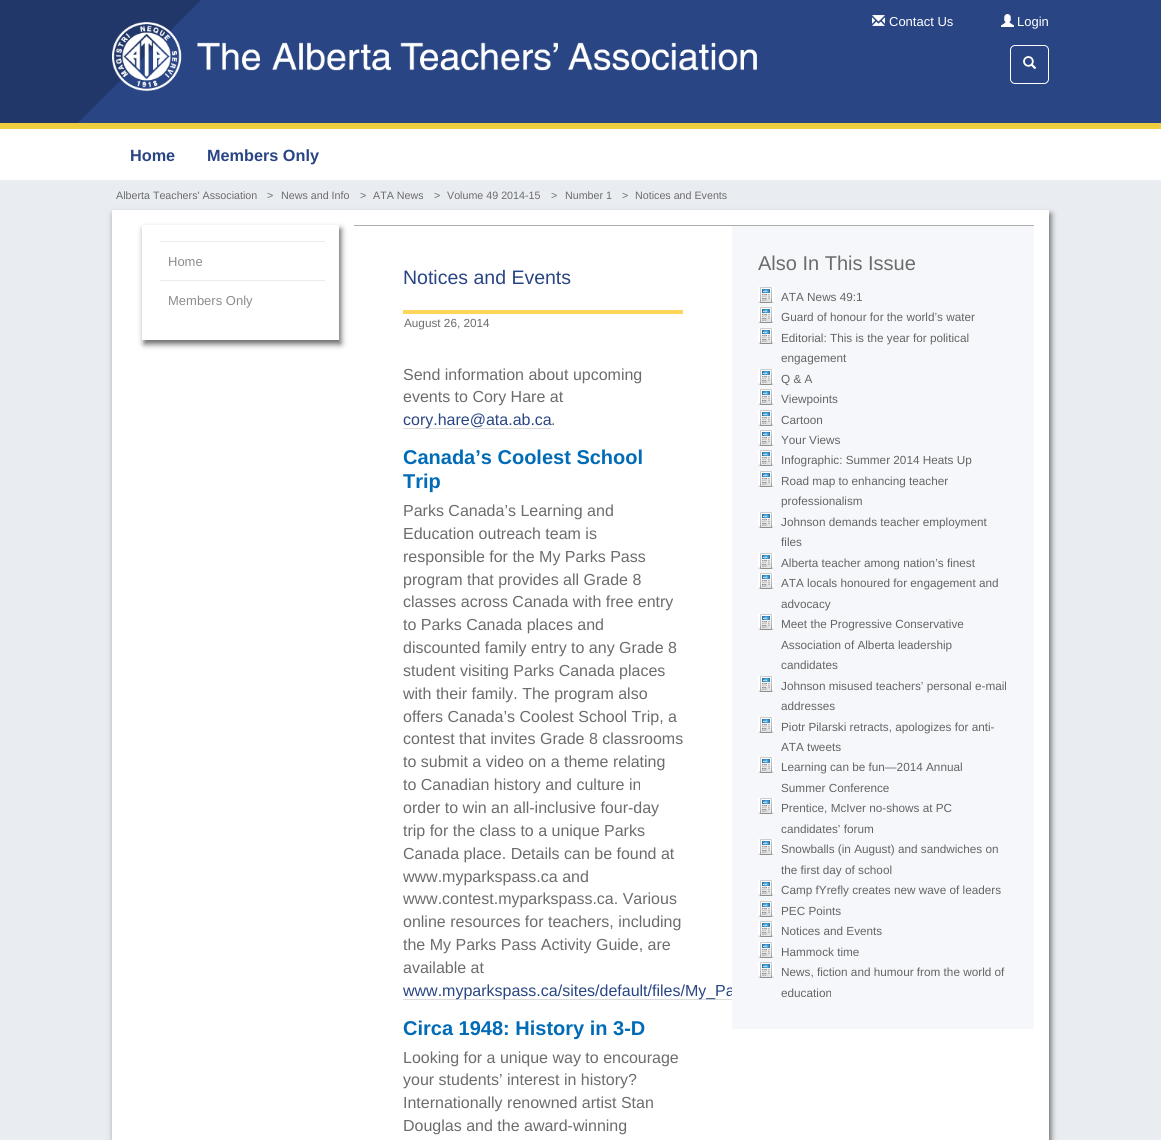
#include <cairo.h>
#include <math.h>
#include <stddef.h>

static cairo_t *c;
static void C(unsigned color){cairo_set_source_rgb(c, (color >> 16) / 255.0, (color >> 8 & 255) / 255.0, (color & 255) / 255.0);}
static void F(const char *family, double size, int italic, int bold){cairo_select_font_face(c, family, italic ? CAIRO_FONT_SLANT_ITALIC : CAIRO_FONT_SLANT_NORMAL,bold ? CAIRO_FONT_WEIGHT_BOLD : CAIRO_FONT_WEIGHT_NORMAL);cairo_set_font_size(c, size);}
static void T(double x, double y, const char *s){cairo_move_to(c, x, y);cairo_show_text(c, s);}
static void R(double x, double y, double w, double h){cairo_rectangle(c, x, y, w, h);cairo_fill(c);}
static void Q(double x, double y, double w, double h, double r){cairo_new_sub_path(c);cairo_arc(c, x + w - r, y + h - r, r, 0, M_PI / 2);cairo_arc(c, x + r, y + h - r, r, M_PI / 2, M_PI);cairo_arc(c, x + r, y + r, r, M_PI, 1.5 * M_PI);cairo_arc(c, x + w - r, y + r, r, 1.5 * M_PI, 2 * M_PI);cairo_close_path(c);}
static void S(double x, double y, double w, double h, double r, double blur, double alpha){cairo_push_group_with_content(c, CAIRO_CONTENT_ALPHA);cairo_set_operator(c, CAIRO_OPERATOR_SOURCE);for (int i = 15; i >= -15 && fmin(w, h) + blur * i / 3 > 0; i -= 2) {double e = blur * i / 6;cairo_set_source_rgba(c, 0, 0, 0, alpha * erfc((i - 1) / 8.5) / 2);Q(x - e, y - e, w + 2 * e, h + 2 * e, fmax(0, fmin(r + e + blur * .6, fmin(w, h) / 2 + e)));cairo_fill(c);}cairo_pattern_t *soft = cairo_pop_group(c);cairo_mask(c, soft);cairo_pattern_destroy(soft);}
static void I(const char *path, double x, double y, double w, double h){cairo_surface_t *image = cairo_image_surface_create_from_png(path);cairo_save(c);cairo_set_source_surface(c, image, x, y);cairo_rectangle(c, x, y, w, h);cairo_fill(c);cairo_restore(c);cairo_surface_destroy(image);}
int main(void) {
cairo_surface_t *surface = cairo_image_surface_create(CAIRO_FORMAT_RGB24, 1161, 1140);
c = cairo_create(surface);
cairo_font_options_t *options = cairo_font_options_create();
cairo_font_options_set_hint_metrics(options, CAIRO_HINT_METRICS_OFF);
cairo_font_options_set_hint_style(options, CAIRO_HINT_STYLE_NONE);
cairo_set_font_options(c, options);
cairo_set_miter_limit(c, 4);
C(0xe9ecf1);
cairo_paint(c);
C(0x294584);
R(77,0,1084,123);
I("1.png",0,0,200,123);
C(0xeecd3f);
R(0,123,1161,6);
I("2.png",112,22,645,69);
I("3.png",872,15,13,11);
F("Liberation Sans",13,0,0);
C(0xffffff);
T(889,26,"Contact Us");
I("4.png",1001,14,13,13);
T(1017,26,"Login");
Q(1010.5,45.5,38,38,4.5);
cairo_set_line_width(c,1);
cairo_stroke(c);
I("5.png",1023,56,14,13);
R(0,129,1161,51);
F("Liberation Sans",16.25,0,1);
C(0x294584);
T(130,161,"Home");
T(207,161,"Members Only");
F("Liberation Sans",10.7,0,0);
C(0x6b6c6b);
T(116,199,"Alberta Teachers' Association");
T(267,199,">");
T(281,199,"News and Info");
T(360,199,">");
T(373,199,"ATA News");
T(434,199,">");
T(447,199,"Volume 49 2014-15");
T(551,199,">");
T(565,199,"Number 1");
T(622,199,">");
T(635,199,"Notices and Events");
C(0x666666);
S(114,214,937,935,0,3,1);
C(0xffffff);
R(112,210,937,930);
cairo_save(c);
cairo_set_fill_rule(c,CAIRO_FILL_RULE_EVEN_ODD);
cairo_new_path(c);
cairo_move_to(c,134,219);
cairo_line_to(c,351,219);
cairo_line_to(c,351,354);
cairo_line_to(c,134,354);
cairo_close_path(c);
cairo_move_to(c,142,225);
cairo_line_to(c,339,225);
cairo_line_to(c,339,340);
cairo_line_to(c,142,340);
cairo_close_path(c);
cairo_clip(c);
C(0x666666);
S(144,229,197,115,0,3,1);
cairo_restore(c);
C(0xebebeb);
R(160,241,165,1);
F("Liberation Sans",13,0,0);
C(0x8c8c8c);
T(168,266,"Home");
C(0xebebeb);
R(160,280,165,1);
C(0x8c8c8c);
T(168,305,"Members Only");
C(0xaaabab);
R(354,225,680,1);
C(0xffd65a);
R(403,310,280,4);
F("Liberation Sans",19.5,0,0);
C(0x294584);
T(403,284,"Notices and Events");
F("Liberation Sans",11.75,0,0);
C(0x6b6c6b);
T(404,327,"August 26, 2014");
F("Liberation Sans",16,0,0);
T(403,380,"Send information about upcoming");
T(403,402,"events to Cory Hare at");
C(0xdcdcdc);
R(403,428,148,1);
C(0x294584);
T(403,425,"cory.hare@ata.ab.ca");
C(0x6b6c6b);
T(551,425,".");
F("Liberation Sans",20,0,1);
C(0x006bb7);
T(403,464,"Canada’s Coolest School");
T(403,488,"Trip");
F("Liberation Sans",16,0,0);
C(0x6b6c6b);
T(403,516,"Parks Canada’s Learning and");
T(403,539,"Education outreach team is");
T(403,562,"responsible for the My Parks Pass");
T(403,585,"program that provides all Grade 8");
T(403,607,"classes across Canada with free entry");
T(403,630,"to Parks Canada places and");
T(403,653,"discounted family entry to any Grade 8");
T(403,676,"student visiting Parks Canada places");
T(403,699,"with their family. The program also");
T(403,722,"offers Canada’s Coolest School Trip, a");
T(403,744,"contest that invites Grade 8 classrooms");
T(403,767,"to submit a video on a theme relating");
T(403,790,"to Canadian history and culture in");
T(403,813,"order to win an all-inclusive four-day");
T(403,836,"trip for the class to a unique Parks");
T(403,859,"Canada place. Details can be found at");
T(403,882,"www.myparkspass.ca and");
T(403,904,"www.contest.myparkspass.ca. Various");
T(403,927,"online resources for teachers, including");
T(403,950,"the My Parks Pass Activity Guide, are");
T(403,973,"available at");
C(0xdcdcdc);
R(403,999,329,1);
C(0x294584);
T(403,996,"www.myparkspass.ca/sites/default/files/My_Pa");
F("Liberation Sans",20,0,1);
C(0x006bb7);
T(403,1035,"Circa 1948: History in 3-D");
F("Liberation Sans",16,0,0);
C(0x6b6c6b);
T(403,1063,"Looking for a unique way to encourage");
T(403,1085,"your students’ interest in history?");
T(403,1108,"Internationally renowned artist Stan");
T(403,1131,"Douglas and the award-winning");
C(0xf5f7fa);
R(732,226,302,803);
F("Liberation Sans",20,0,0);
C(0x6b6c6b);
T(758,270,"Also In This Issue");
I("6.png",758,287,16,16);
F("Liberation Sans",11.75,0,0);
C(0x646464);
T(781,301,"ATA News 49:1");
I("6.png",758,307,16,16);
T(781,321,"Guard of honour for the world’s water");
I("6.png",758,328,16,16);
T(781,342,"Editorial: This is the year for political");
T(781,362,"engagement");
I("6.png",758,369,16,16);
T(781,383,"Q & A");
I("6.png",758,389,16,16);
T(781,403,"Viewpoints");
I("6.png",758,410,16,16);
T(781,424,"Cartoon");
I("6.png",758,430,16,16);
T(781,444,"Your Views");
I("6.png",758,450,16,16);
T(781,464,"Infographic: Summer 2014 Heats Up");
I("6.png",758,471,16,16);
T(781,485,"Road map to enhancing teacher");
T(781,505,"professionalism");
I("6.png",758,512,16,16);
T(781,526,"Johnson demands teacher employment");
T(781,546,"files");
I("6.png",758,553,16,16);
T(781,567,"Alberta teacher among nation’s finest");
I("6.png",758,573,16,16);
T(781,587,"ATA locals honoured for engagement and");
T(781,608,"advocacy");
I("6.png",758,614,16,16);
T(781,628,"Meet the Progressive Conservative");
T(781,649,"Association of Alberta leadership");
T(781,669,"candidates");
I("6.png",758,676,16,16);
T(781,690,"Johnson misused teachers’ personal e-mail");
T(781,710,"addresses");
I("6.png",758,717,16,16);
T(781,731,"Piotr Pilarski retracts, apologizes for anti-");
T(781,751,"ATA tweets");
I("6.png",758,757,16,16);
T(781,771,"Learning can be fun—2014 Annual");
T(781,792,"Summer Conference");
I("6.png",758,798,16,16);
T(781,812,"Prentice, McIver no-shows at PC");
T(781,833,"candidates’ forum");
I("6.png",758,839,16,16);
T(781,853,"Snowballs (in August) and sandwiches on");
T(781,874,"the first day of school");
I("6.png",758,880,16,16);
T(781,894,"Camp fYrefly creates new wave of leaders");
I("6.png",758,901,16,16);
T(781,915,"PEC Points");
I("6.png",758,921,16,16);
T(781,935,"Notices and Events");
I("6.png",758,942,16,16);
T(781,956,"Hammock time");
I("6.png",758,962,16,16);
T(781,976,"News, fiction and humour from the world of");
T(781,997,"education");
cairo_surface_write_to_png(surface, "o.png");
cairo_font_options_destroy(options);
cairo_destroy(c);
cairo_surface_destroy(surface);
return 0;
}
